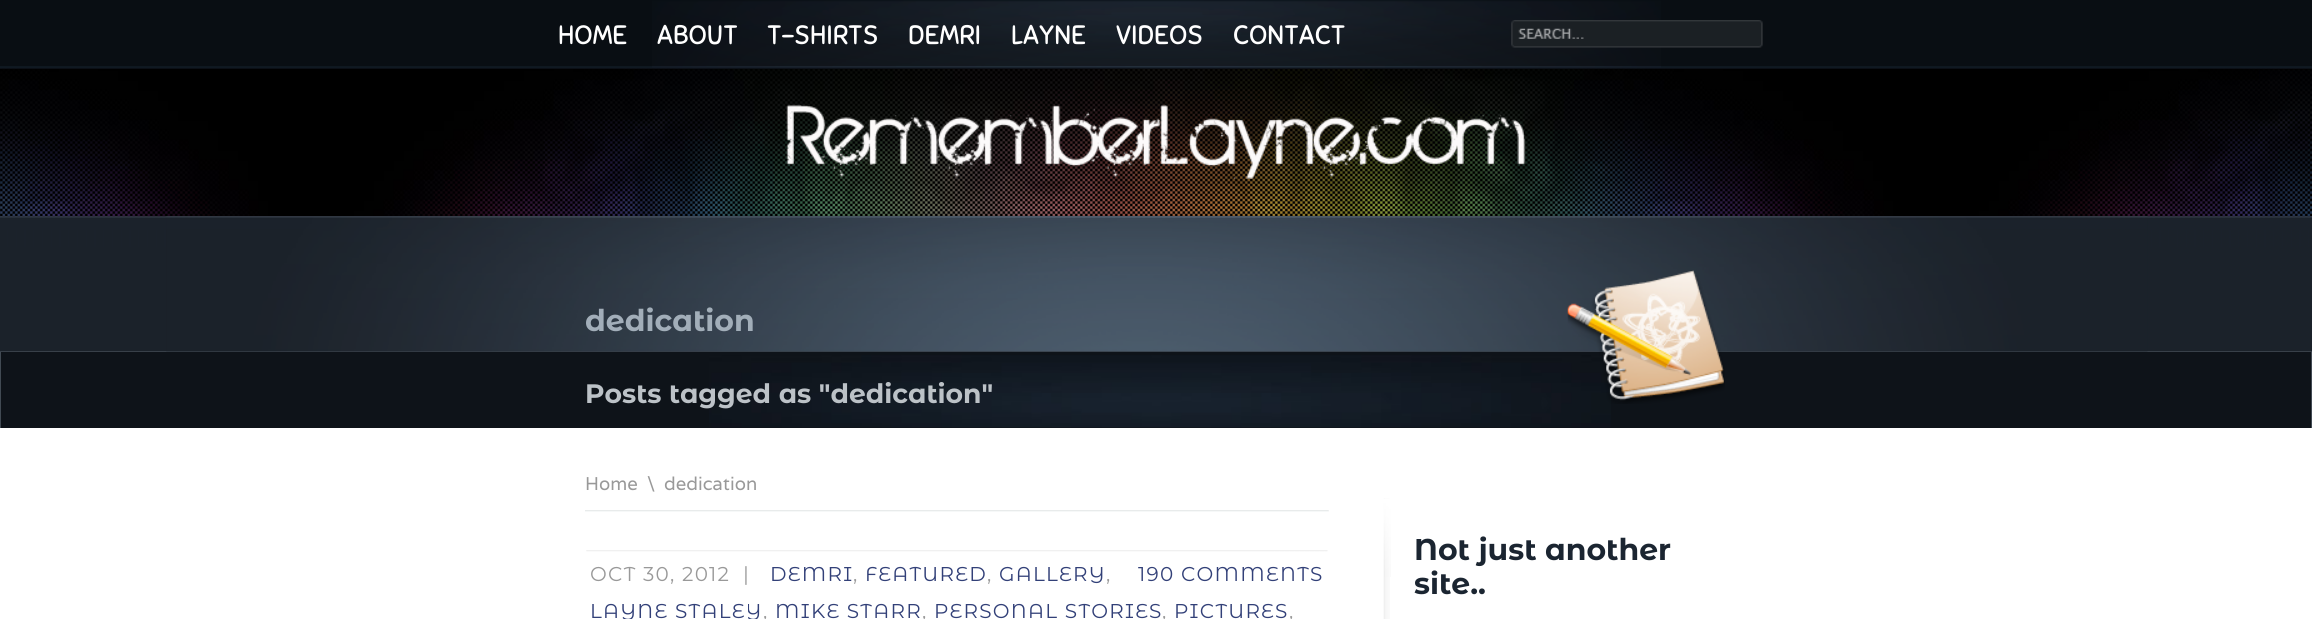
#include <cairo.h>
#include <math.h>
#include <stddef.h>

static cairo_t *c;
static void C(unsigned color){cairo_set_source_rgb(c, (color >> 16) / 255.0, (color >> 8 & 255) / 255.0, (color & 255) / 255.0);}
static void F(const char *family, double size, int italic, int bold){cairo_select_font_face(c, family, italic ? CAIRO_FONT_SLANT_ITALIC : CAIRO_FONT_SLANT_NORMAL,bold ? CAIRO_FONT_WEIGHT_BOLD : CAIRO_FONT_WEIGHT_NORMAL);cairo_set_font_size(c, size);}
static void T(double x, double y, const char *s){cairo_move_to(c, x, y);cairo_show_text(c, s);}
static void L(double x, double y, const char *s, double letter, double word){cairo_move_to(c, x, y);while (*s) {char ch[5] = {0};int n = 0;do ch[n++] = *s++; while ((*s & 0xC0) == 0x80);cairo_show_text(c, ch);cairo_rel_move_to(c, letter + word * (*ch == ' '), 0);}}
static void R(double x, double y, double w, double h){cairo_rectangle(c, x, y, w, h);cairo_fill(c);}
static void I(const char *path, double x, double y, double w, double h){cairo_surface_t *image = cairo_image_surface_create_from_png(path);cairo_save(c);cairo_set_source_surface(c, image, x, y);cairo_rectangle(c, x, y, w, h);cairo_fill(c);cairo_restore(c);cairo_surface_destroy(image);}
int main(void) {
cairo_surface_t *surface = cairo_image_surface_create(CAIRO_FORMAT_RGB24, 2312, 619);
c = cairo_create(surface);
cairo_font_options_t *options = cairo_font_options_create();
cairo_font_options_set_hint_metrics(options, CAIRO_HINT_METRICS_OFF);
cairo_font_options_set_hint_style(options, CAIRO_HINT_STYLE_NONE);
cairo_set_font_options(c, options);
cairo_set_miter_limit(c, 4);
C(0xffffff);
cairo_paint(c);
I("1.png",0,68,2312,149);
I("2.png",0,0,2312,69);
I("3.png",652,0,1009,68);
F("Sniglet",26.7,0,0);
C(0xffffff);
T(558,44,"HOME");
T(657,44,"ABOUT");
T(767,44,"T-SHIRTS");
T(908,44,"DEMRI");
T(1011,44,"LAYNE");
T(1116,44,"VIDEOS");
T(1233,44,"CONTACT");
I("4.png",1511,20,252,28);
I("5.png",786,104,740,75);
C(0x414a53);
R(0,351,2312,1);
R(2311,351,1,77);
R(0,351,1,77);
I("6.png",0,212,2312,140);
I("7.png",166,212,1982,140);
F("Montserrat Alternates",30,0,1);
C(0xa2aeb9);
T(585,331,"dedication");
C(0x0e1319);
R(1,352,2310,76);
I("9.png",709,355,902,73);
I("8.png",1567,270,158,134);
F("Montserrat Alternates",26.7,0,1);
C(0xbcc2c7);
T(585,403,"Posts tagged as \"dedication\"");
I("10.png",585,510,744,2);
F("Varela",18.5,0,0);
C(0x999999);
T(585,490,"Home");
T(647,490,"\\");
T(664,490,"dedication");
I("11.png",586,550,742,2);
F("Montserrat Alternates",20,0,0);
L(590,581,"OCT 30, 2012",1.25,0);
L(743,581,"|",1.25,0);
C(0x324078);
L(770,581,"DEMRI",1.25,0);
C(0x999999);
L(853,581,",",1.25,0);
C(0x324078);
L(865,581,"FEATURED",1.25,0);
C(0x999999);
L(987,581,",",1.25,0);
C(0x324078);
L(999,581,"GALLERY",1.25,0);
C(0x999999);
L(1106,581,",",1.25,0);
C(0x324078);
L(1138,581,"190 COMMENTS",1.25,0);
L(590,618,"LAYNE STALEY",1.25,0);
C(0x999999);
L(763,618,",",1.25,0);
C(0x324078);
L(775,618,"MIKE STARR",1.25,0);
C(0x999999);
L(922,618,",",1.25,0);
C(0x324078);
L(934,618,"PERSONAL STORIES",1.25,0);
C(0x999999);
L(1162,618,",",1.25,0);
C(0x324078);
L(1174,618,"PICTURES",1.25,0);
C(0x999999);
L(1289,618,",",1.25,0);
I("12.png",1383,498,7,121);
I("13.png",1383,499,8,78);
F("Montserrat Alternates",30,0,1);
C(0x1b2531);
T(1414,560,"Not just another");
T(1414,594,"site..");
cairo_surface_write_to_png(surface, "o.png");
cairo_font_options_destroy(options);
cairo_destroy(c);
cairo_surface_destroy(surface);
return 0;
}
